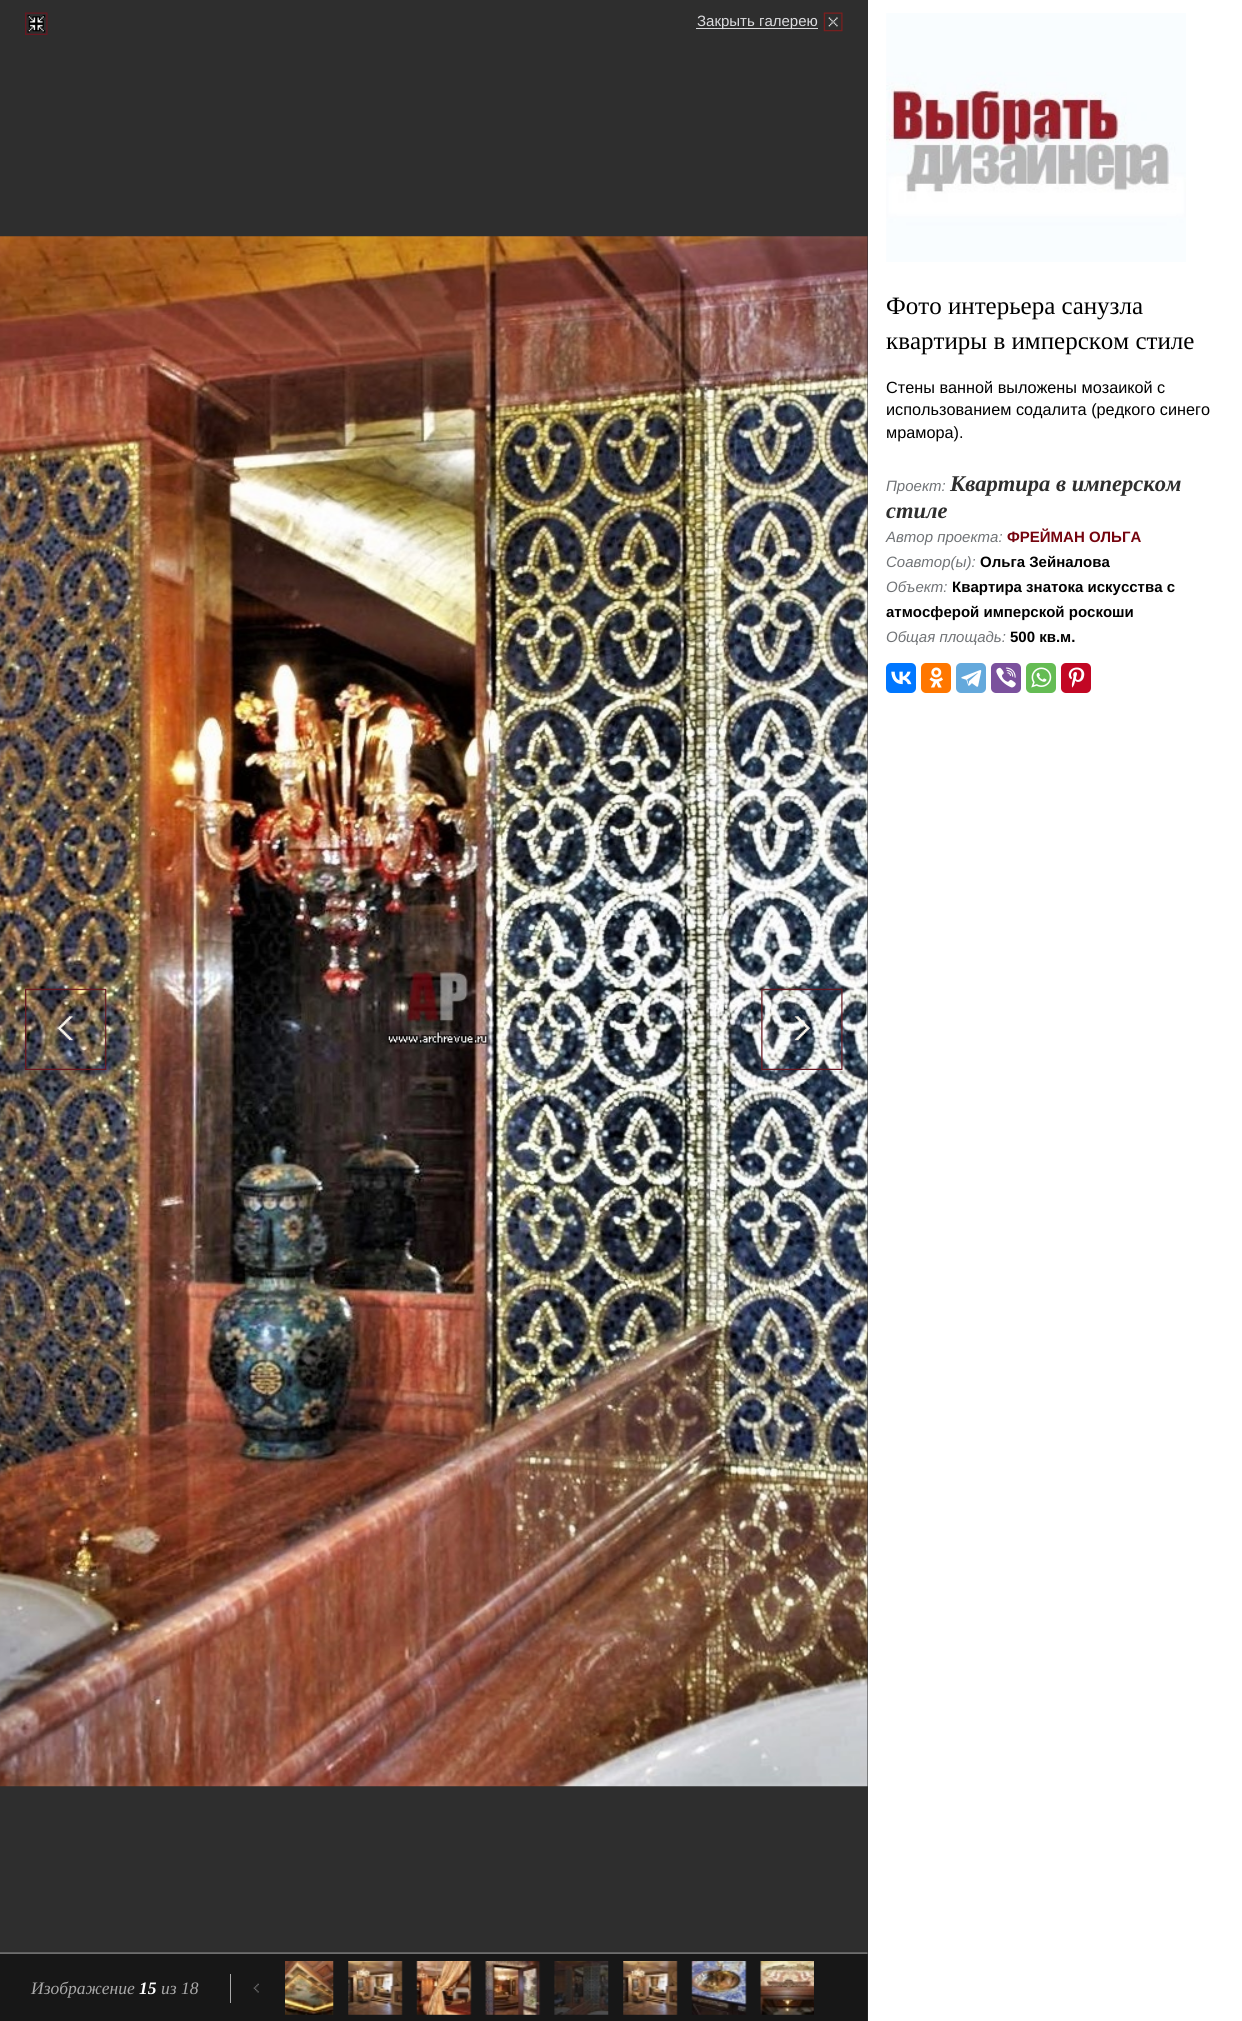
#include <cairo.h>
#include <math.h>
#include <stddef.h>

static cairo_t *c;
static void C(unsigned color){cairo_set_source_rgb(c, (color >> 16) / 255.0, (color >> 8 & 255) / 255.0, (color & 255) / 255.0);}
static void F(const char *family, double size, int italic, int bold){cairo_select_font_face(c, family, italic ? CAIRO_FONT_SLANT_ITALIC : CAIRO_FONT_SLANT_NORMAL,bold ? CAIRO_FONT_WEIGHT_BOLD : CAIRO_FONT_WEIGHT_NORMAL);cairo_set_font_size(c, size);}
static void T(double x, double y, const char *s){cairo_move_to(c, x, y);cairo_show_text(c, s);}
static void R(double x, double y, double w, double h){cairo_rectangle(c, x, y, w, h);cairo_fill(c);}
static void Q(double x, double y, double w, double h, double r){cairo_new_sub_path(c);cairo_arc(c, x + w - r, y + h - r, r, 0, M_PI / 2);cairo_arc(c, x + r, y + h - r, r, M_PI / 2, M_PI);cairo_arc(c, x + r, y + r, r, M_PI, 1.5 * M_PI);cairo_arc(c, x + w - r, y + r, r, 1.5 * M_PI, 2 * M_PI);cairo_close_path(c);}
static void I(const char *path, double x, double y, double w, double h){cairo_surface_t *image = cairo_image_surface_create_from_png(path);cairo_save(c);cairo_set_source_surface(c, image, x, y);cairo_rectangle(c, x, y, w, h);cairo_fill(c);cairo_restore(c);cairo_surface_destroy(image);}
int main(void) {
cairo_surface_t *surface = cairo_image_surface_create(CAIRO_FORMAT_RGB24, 1242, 2021);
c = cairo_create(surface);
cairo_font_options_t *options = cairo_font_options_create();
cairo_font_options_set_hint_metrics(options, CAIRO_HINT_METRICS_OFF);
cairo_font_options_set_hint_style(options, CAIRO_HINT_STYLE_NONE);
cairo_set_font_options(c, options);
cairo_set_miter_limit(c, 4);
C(0xffffff);
cairo_paint(c);
C(0x2e2e2e);
R(0,0,868,2021);
I("1.png",25,12,23,23);
C(0xdbdbde);
R(696,28,122,1);
F("Liberation Sans",15,0,0);
T(697,26,"Закрыть галерею");
I("2.png",823,12,20,20);
I("3.png",886,13,300,249);
F("Liberation Serif",25,0,0);
C(0x000000);
T(886,314,"Фото интерьера санузла");
T(886,349,"квартиры в имперском стиле");
F("Liberation Sans",16.25,0,0);
T(886,393,"Стены ванной выложены мозаикой с");
T(886,415,"использованием содалита (редкого синего");
T(886,438,"мрамора).");
F("Liberation Sans",15,1,0);
C(0x707376);
T(886,491,"Проект:");
F("Liberation Serif",22.5,1,1);
C(0x2e2e2e);
T(950,491,"Квартира в имперском");
T(886,518,"стиле");
F("Liberation Sans",15,1,0);
C(0x707376);
T(886,542,"Автор проекта:");
F("Liberation Sans",15,0,1);
C(0x75040e);
T(1007,542,"ФРЕЙМАН ОЛЬГА");
F("Liberation Sans",15,1,0);
C(0x707376);
T(886,567,"Соавтор(ы):");
F("Liberation Sans",15,0,1);
C(0x000000);
T(980,567,"Ольга Зейналова");
F("Liberation Sans",15,1,0);
C(0x707376);
T(886,592,"Объект:");
F("Liberation Sans",15,0,1);
C(0x000000);
T(952,592,"Квартира знатока искусства с");
T(886,617,"атмосферой имперской роскоши");
F("Liberation Sans",15,1,0);
C(0x707376);
T(886,642,"Общая площадь:");
F("Liberation Sans",15,0,1);
C(0x000000);
T(1010,642,"500 кв.м.");
C(0x0077ff);
Q(886,663,30,30,5);
cairo_fill(c);
I("4.png",891,671,21,14);
C(0xff7700);
Q(921,663,30,30,5);
cairo_fill(c);
I("5.png",929,667,14,21);
C(0x64a9dc);
Q(956,663,30,30,5);
cairo_fill(c);
I("6.png",961,670,21,17);
C(0x7b519d);
Q(991,663,30,30,5);
cairo_fill(c);
I("7.png",996,667,20,21);
C(0x65bc54);
Q(1026,663,30,30,5);
cairo_fill(c);
I("8.png",1031,667,21,21);
C(0xc20724);
Q(1061,663,30,30,5);
cairo_fill(c);
I("9.png",1068,667,17,21);
I("10.png",0,236,868,1551);
I("11.png",25,988,82,82);
I("12.png",761,988,82,82);
I("13.png",0,1952,868,69);
C(0xa9a9a9);
R(230,1974,1,29);
F("Liberation Serif",17.5,1,0);
T(31,1994,"Изображение");
F("Liberation Serif",17.5,1,1);
C(0xffffff);
T(139,1994,"15");
F("Liberation Serif",17.5,1,0);
C(0xa9a9a9);
T(161,1994,"из 18");
I("14.png",253,1983,6,10);
I("15.png",285,1961,49,54);
I("16.png",348,1961,55,54);
I("17.png",416,1961,56,54);
I("18.png",485,1961,56,54);
I("19.png",554,1961,55,54);
I("20.png",623,1961,55,54);
I("21.png",691,1961,56,54);
I("22.png",760,1961,54,54);
cairo_surface_write_to_png(surface, "o.png");
cairo_font_options_destroy(options);
cairo_destroy(c);
cairo_surface_destroy(surface);
return 0;
}
